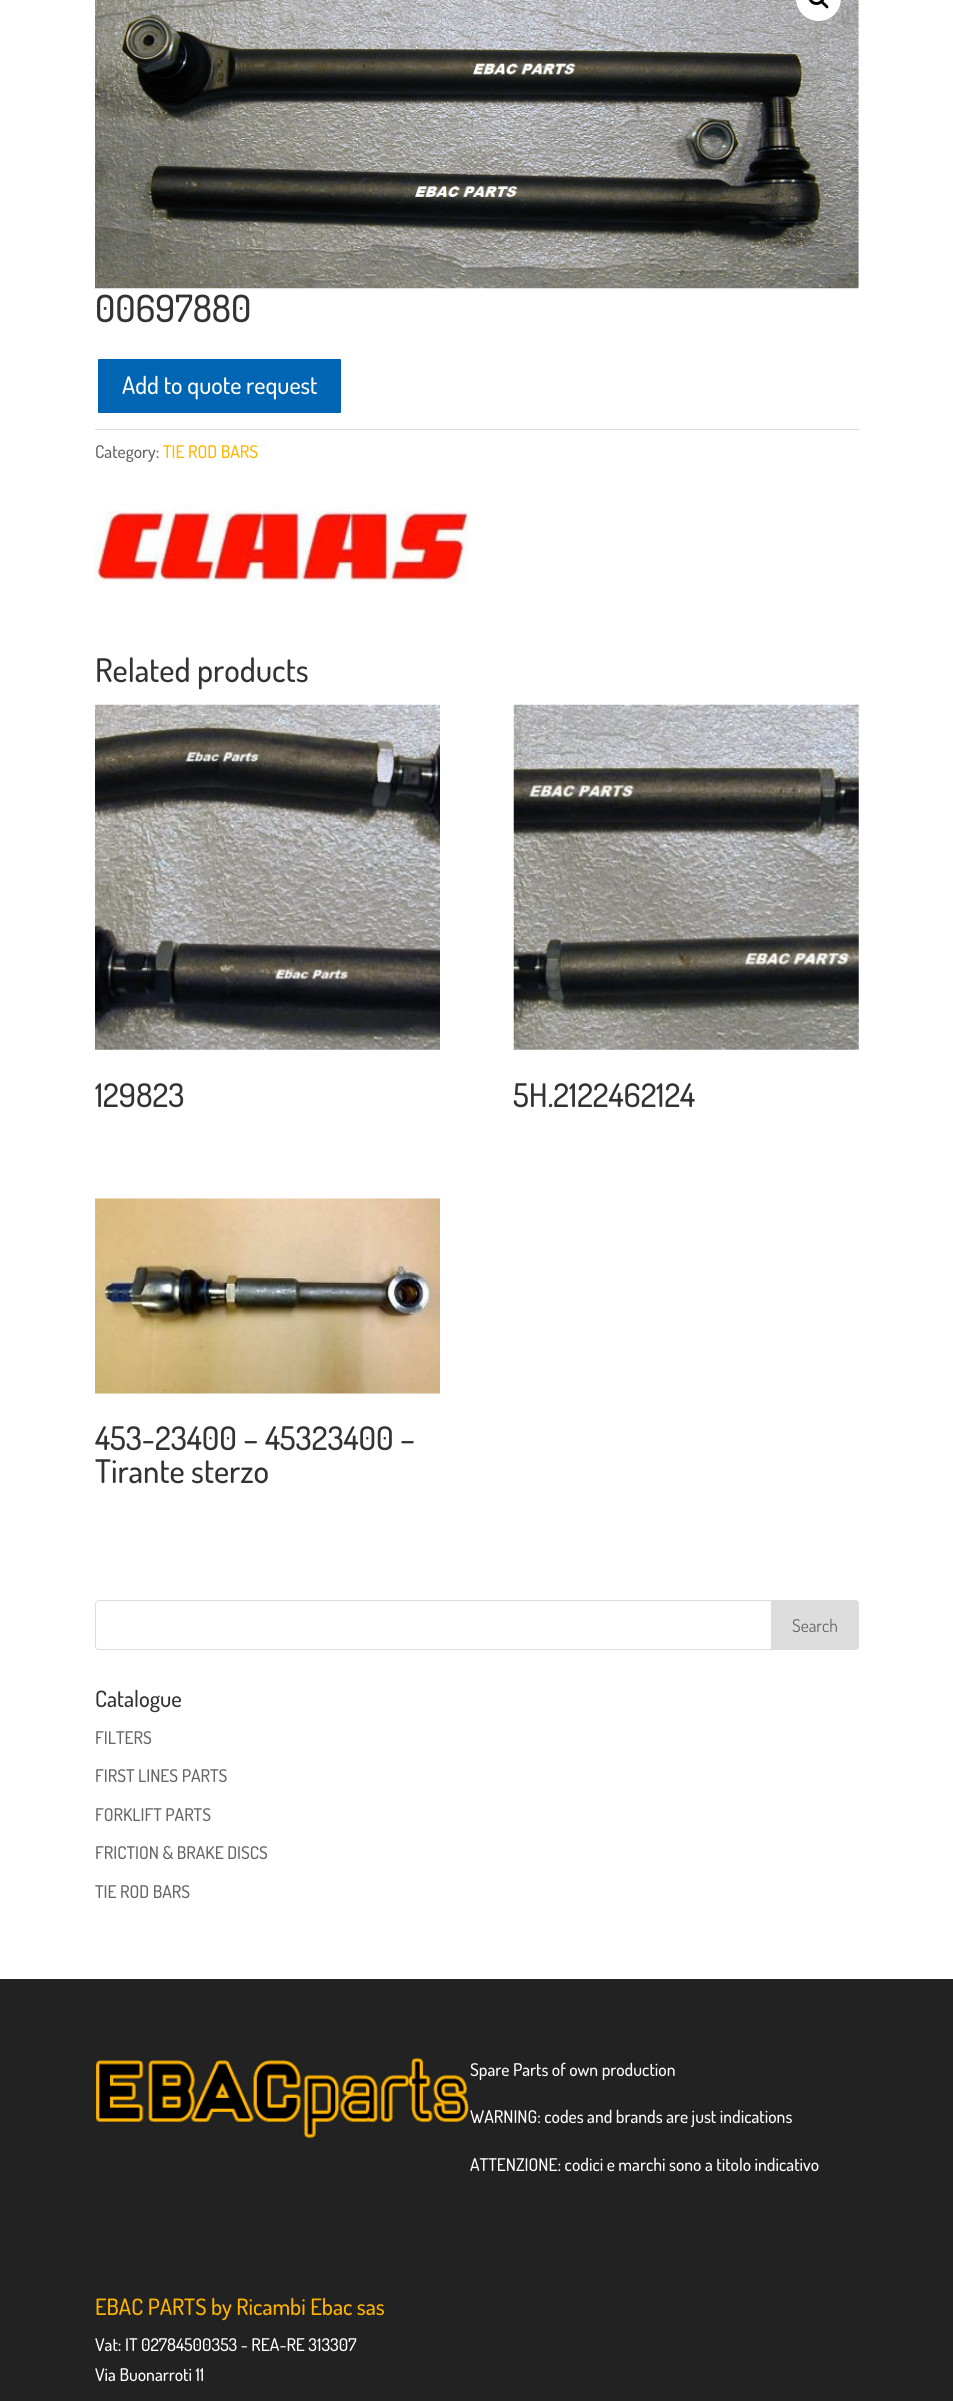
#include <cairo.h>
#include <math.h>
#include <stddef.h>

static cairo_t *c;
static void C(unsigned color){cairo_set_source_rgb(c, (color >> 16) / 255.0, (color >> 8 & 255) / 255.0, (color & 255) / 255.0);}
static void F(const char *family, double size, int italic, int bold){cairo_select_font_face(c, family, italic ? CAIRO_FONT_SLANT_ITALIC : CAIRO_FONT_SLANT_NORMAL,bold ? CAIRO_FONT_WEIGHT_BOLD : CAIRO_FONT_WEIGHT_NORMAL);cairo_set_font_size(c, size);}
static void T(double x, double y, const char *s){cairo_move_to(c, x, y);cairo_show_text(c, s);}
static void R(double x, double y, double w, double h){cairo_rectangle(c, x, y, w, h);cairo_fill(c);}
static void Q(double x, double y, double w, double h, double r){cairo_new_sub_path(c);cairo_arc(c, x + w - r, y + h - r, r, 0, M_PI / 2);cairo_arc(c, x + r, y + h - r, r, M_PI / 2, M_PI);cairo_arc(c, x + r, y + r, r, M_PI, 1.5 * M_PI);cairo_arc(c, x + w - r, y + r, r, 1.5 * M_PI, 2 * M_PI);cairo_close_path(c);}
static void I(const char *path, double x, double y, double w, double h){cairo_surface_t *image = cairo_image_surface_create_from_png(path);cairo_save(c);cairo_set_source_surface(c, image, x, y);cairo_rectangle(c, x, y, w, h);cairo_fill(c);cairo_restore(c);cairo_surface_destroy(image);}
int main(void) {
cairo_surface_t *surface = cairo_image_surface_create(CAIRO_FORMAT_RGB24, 953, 2401);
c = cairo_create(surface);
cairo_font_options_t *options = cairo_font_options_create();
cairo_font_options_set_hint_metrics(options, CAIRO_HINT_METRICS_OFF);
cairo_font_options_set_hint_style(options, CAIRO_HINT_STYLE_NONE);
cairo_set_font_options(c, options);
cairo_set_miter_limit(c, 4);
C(0xffffff);
cairo_paint(c);
I("1.png",95,0,764,289);
C(0xffffff);
Q(796,-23,45,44,22.5);
cairo_fill(c);
cairo_arc(c,816.5,-3.5,7,0,2 * M_PI);
C(0x000000);
cairo_set_line_width(c,3);
cairo_stroke(c);
cairo_new_path(c);
cairo_move_to(c,821,1);
cairo_curve_to(c,822.5,-.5,824.5,3,825.5,3.5);
cairo_curve_to(c,826.5,4.5,829.5,6.5,828,8);
cairo_curve_to(c,826.5,9.5,824.5,6,823.5,5.5);
cairo_curve_to(c,823,4.5,819.5,2.5,821,1);
cairo_close_path(c);
cairo_fill(c);
F("Dosis Medium",37.5,0,0);
C(0x333333);
T(95,322,"00697880");
C(0x0066b4);
Q(96.5,357.5,246,57,2.5);
cairo_fill_preserve(c);
C(0xffffff);
cairo_stroke(c);
F("Dosis Medium",24,0,0);
T(122,394,"Add to quote request");
C(0xdadada);
R(95,429,764,1);
F("Dosis Medium",17.5,0,0);
C(0x666666);
T(95,458,"Category:");
C(0xffb400);
T(163,458,"TIE ROD BARS");
I("2.png",95,504,375,80);
F("Dosis Medium",32.5,0,0);
C(0x333333);
T(95,682,"Related products");
I("3.png",95,704,345,346);
T(95,1107,"129823");
I("4.png",513,704,346,346);
T(513,1107,"5H.2122462124");
I("5.png",95,1198,345,196);
T(95,1450,"453-23400 – 45323400 –");
T(95,1483,"Tirante sterzo");
Q(95.5,1600.5,763,49,3.5);
C(0xdddddd);
cairo_set_line_width(c,1);
cairo_stroke(c);
cairo_new_path(c);
cairo_move_to(c,771.5,1600.5);
cairo_line_to(c,855,1600.5);
cairo_curve_to(c,857,1600.5,858.5,1602,858.5,1604);
cairo_line_to(c,858.5,1646);
cairo_curve_to(c,858.5,1648,857,1649.5,855,1649.5);
cairo_line_to(c,771.5,1649.5);
cairo_close_path(c);
cairo_fill_preserve(c);
cairo_stroke(c);
F("Dosis",17.5,0,0);
C(0x666666);
T(792,1632,"Search");
F("Dosis Medium",22.5,0,0);
C(0x333333);
T(95,1707,"Catalogue");
F("Dosis Medium",17.5,0,0);
C(0x666666);
T(95,1744,"FILTERS");
T(95,1782,"FIRST LINES PARTS");
T(95,1821,"FORKLIFT PARTS");
T(95,1859,"FRICTION & BRAKE DISCS");
T(95,1898,"TIE ROD BARS");
C(0x222222);
R(0,1979,953,422);
I("6.png",96,2058,373,80);
C(0xffffff);
T(470,2076,"Spare Parts of own production");
T(470,2123,"WARNING: codes and brands are just indications");
T(470,2171,"ATTENZIONE: codici e marchi sono a titolo indicativo");
F("Dosis Medium",22.5,0,0);
C(0xffb400);
T(95,2315,"EBAC PARTS by Ricambi Ebac sas");
F("Dosis Medium",17.5,0,0);
C(0xffffff);
T(95,2351,"Vat: IT 02784500353 - REA-RE 313307");
T(95,2381,"Via Buonarroti 11");
cairo_surface_write_to_png(surface, "o.png");
cairo_font_options_destroy(options);
cairo_destroy(c);
cairo_surface_destroy(surface);
return 0;
}
